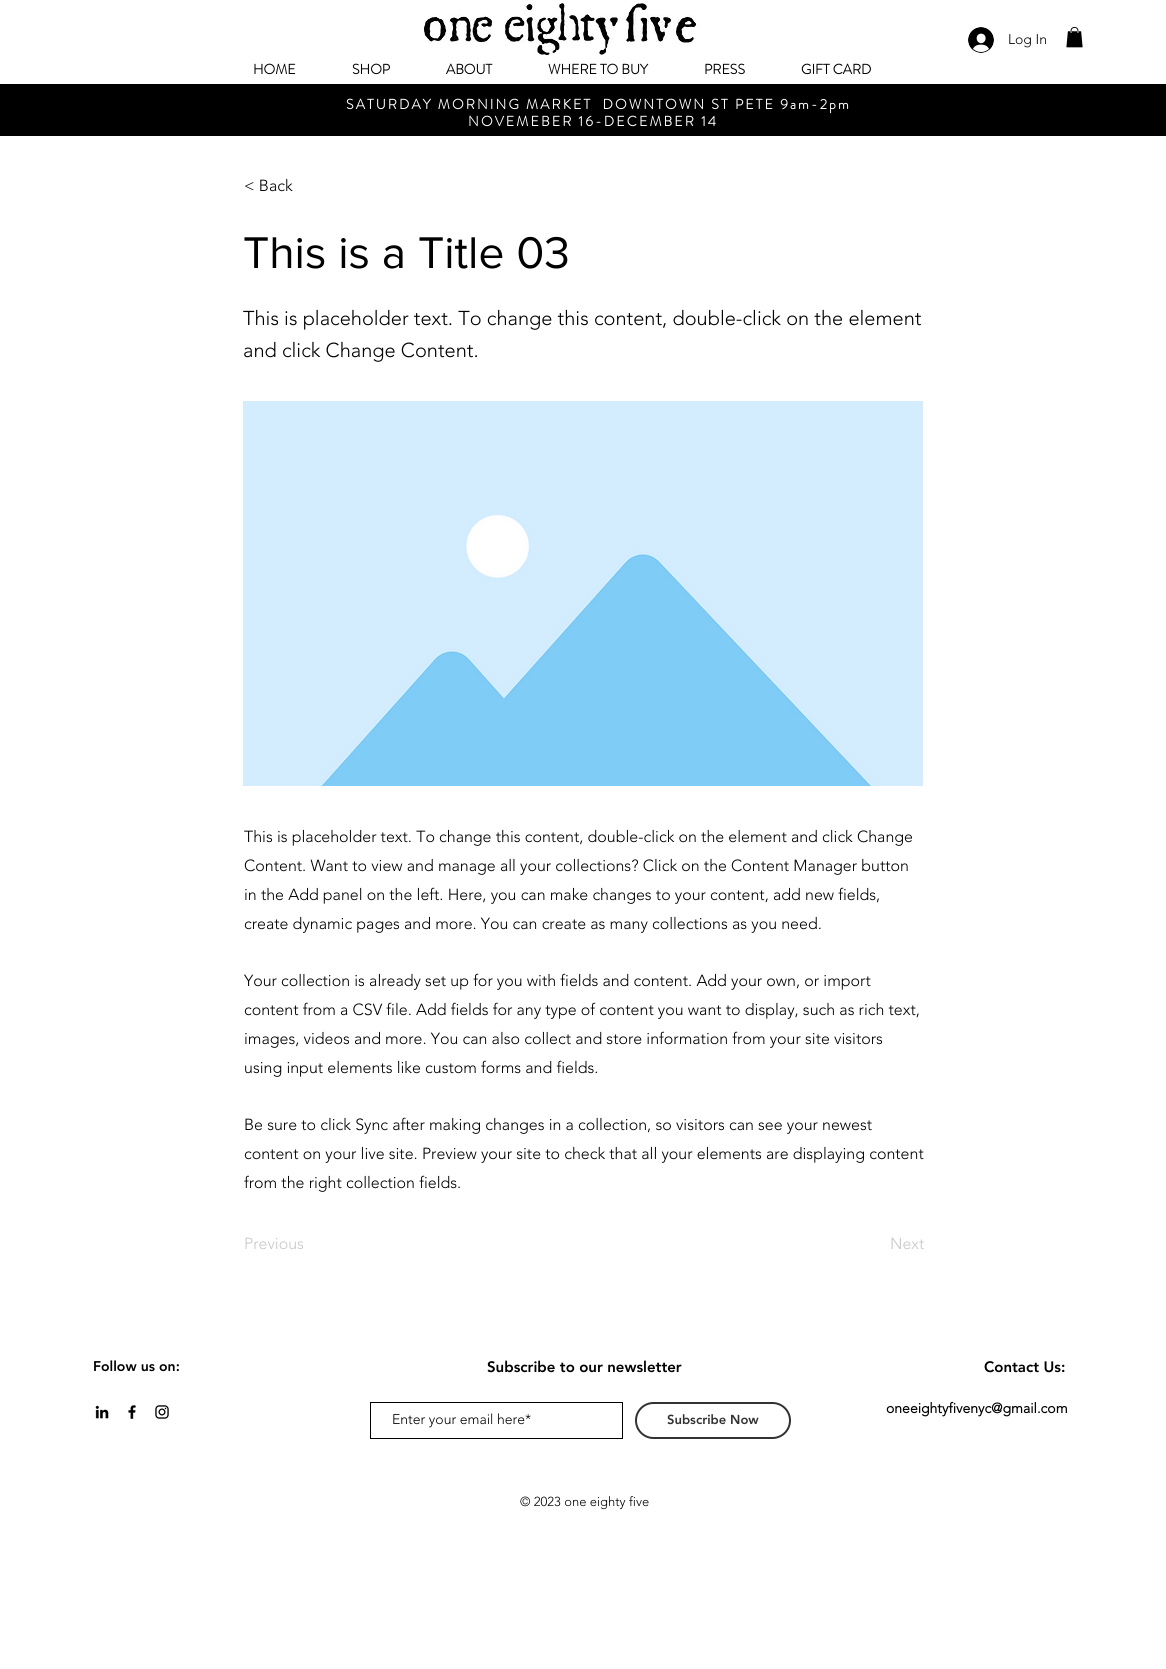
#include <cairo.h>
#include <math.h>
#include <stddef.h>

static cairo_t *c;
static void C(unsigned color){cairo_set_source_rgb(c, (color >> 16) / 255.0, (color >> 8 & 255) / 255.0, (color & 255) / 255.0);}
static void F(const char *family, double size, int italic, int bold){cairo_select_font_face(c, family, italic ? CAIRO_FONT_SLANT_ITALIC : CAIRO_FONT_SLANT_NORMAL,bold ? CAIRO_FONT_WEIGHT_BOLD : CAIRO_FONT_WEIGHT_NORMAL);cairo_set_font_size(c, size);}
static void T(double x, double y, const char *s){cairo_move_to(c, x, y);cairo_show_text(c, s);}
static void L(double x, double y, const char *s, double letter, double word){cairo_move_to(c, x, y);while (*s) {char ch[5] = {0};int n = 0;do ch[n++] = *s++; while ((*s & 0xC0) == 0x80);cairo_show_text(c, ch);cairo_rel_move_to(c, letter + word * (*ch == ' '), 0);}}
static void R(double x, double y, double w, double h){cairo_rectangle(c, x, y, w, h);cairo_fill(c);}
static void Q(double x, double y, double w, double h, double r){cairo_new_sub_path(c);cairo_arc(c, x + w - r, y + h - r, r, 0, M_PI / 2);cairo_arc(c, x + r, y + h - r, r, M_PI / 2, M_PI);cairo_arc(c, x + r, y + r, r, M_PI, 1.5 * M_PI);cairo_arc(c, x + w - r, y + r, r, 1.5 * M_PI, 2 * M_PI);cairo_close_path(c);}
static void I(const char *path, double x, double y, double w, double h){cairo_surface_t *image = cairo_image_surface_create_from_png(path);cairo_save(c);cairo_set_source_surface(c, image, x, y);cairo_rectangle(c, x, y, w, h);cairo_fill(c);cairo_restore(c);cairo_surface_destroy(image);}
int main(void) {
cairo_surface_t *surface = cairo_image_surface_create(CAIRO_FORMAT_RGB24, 1166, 1669);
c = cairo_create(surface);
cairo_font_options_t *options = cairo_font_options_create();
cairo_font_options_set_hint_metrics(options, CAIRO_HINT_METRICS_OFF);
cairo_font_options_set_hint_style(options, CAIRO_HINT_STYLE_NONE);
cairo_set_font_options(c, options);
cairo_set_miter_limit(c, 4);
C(0xffffff);
cairo_paint(c);
I("1.png",968,27,26,26);
F("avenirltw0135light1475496 Light",14,0,0);
C(0x000000);
T(1008,44,"Log In");
I("2.png",1066,27,17,21);
I("3.png",424,3,276,52);
F("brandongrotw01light",14,0,1);
T(253,74,"HOME");
T(352,74,"SHOP");
T(446,74,"ABOUT");
T(548,74,"WHERE TO BUY");
T(704,74,"PRESS");
T(801,74,"GIFT CARD");
R(0,84,1166,52);
C(0xffffff);
L(346,109,"SATURDAY MORNING MARKET  DOWNTOWN ST PETE 9am-2pm",2.1,0);
L(468,126,"NOVEMEBER 16-DECEMBER 14",2.1,0);
F("avenirltw0135light1475496 Light",16,0,0);
C(0x000000);
T(244,191,"< Back");
F("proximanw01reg",46,0,0);
T(243,268,"This is a Title 03");
F("avenirltw0135light1475496 Light",20,0,0);
T(243,325,"This is placeholder text. To change this content, double-click on the element");
T(243,357,"and click Change Content.");
I("4.png",243,401,680,385);
F("avenirltw0135light1475496 Light",16,0,0);
T(244,842,"This is placeholder text. To change this content, double-click on the element and click Change");
T(244,871,"Content. Want to view and manage all your collections? Click on the Content Manager button");
T(244,900,"in the Add panel on the left. Here, you can make changes to your content, add new fields,");
T(244,929,"create dynamic pages and more. You can create as many collections as you need.");
T(244,986,"Your collection is already set up for you with fields and content. Add your own, or import");
T(244,1015,"content from a CSV file. Add fields for any type of content you want to display, such as rich text,");
T(244,1044,"images, videos and more. You can also collect and store information from your site visitors");
T(244,1073,"using input elements like custom forms and fields.");
T(244,1130,"Be sure to click Sync after making changes in a collection, so visitors can see your newest");
T(244,1159,"content on your live site. Preview your site to check that all your elements are displaying content");
T(244,1188,"from the right collection fields.");
C(0xc7c7c7);
T(244,1249,"Previous");
T(890,1249,"Next");
F("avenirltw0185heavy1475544 Black",14,0,0);
C(0x000000);
T(93,1371,"Follow us on:");
F("avenirltw0185heavy1475544 Black",15,0,0);
T(487,1372,"Subscribe to our newsletter");
cairo_rectangle(c,370.5,1402.5,252,36);
cairo_set_line_width(c,1);
cairo_stroke(c);
F("avenirltw0135light1475496 Light",14,0,0);
T(392,1424,"Enter your email here*");
Q(636,1403,154,35,17.5);
C(0x323232);
cairo_set_line_width(c,2);
cairo_stroke(c);
F("avenirltw0185heavy1475544 Black",13,0,0);
T(667,1424,"Subscribe Now");
F("avenirltw0185heavy1475544 Black",15,0,0);
C(0x000000);
T(984,1372,"Contact Us:");
I("5.png",95,1405,14,14);
I("6.png",128,1405,8,14);
I("7.png",155,1405,14,14);
F("avenirltw0135light1475496",14,0,1);
T(886,1413,"oneeightyfivenyc@gmail.com");
F("avenirltw0135light1475496 Light",13,0,0);
T(520,1506,"© 2023 one eighty five");
cairo_surface_write_to_png(surface, "o.png");
cairo_font_options_destroy(options);
cairo_destroy(c);
cairo_surface_destroy(surface);
return 0;
}
